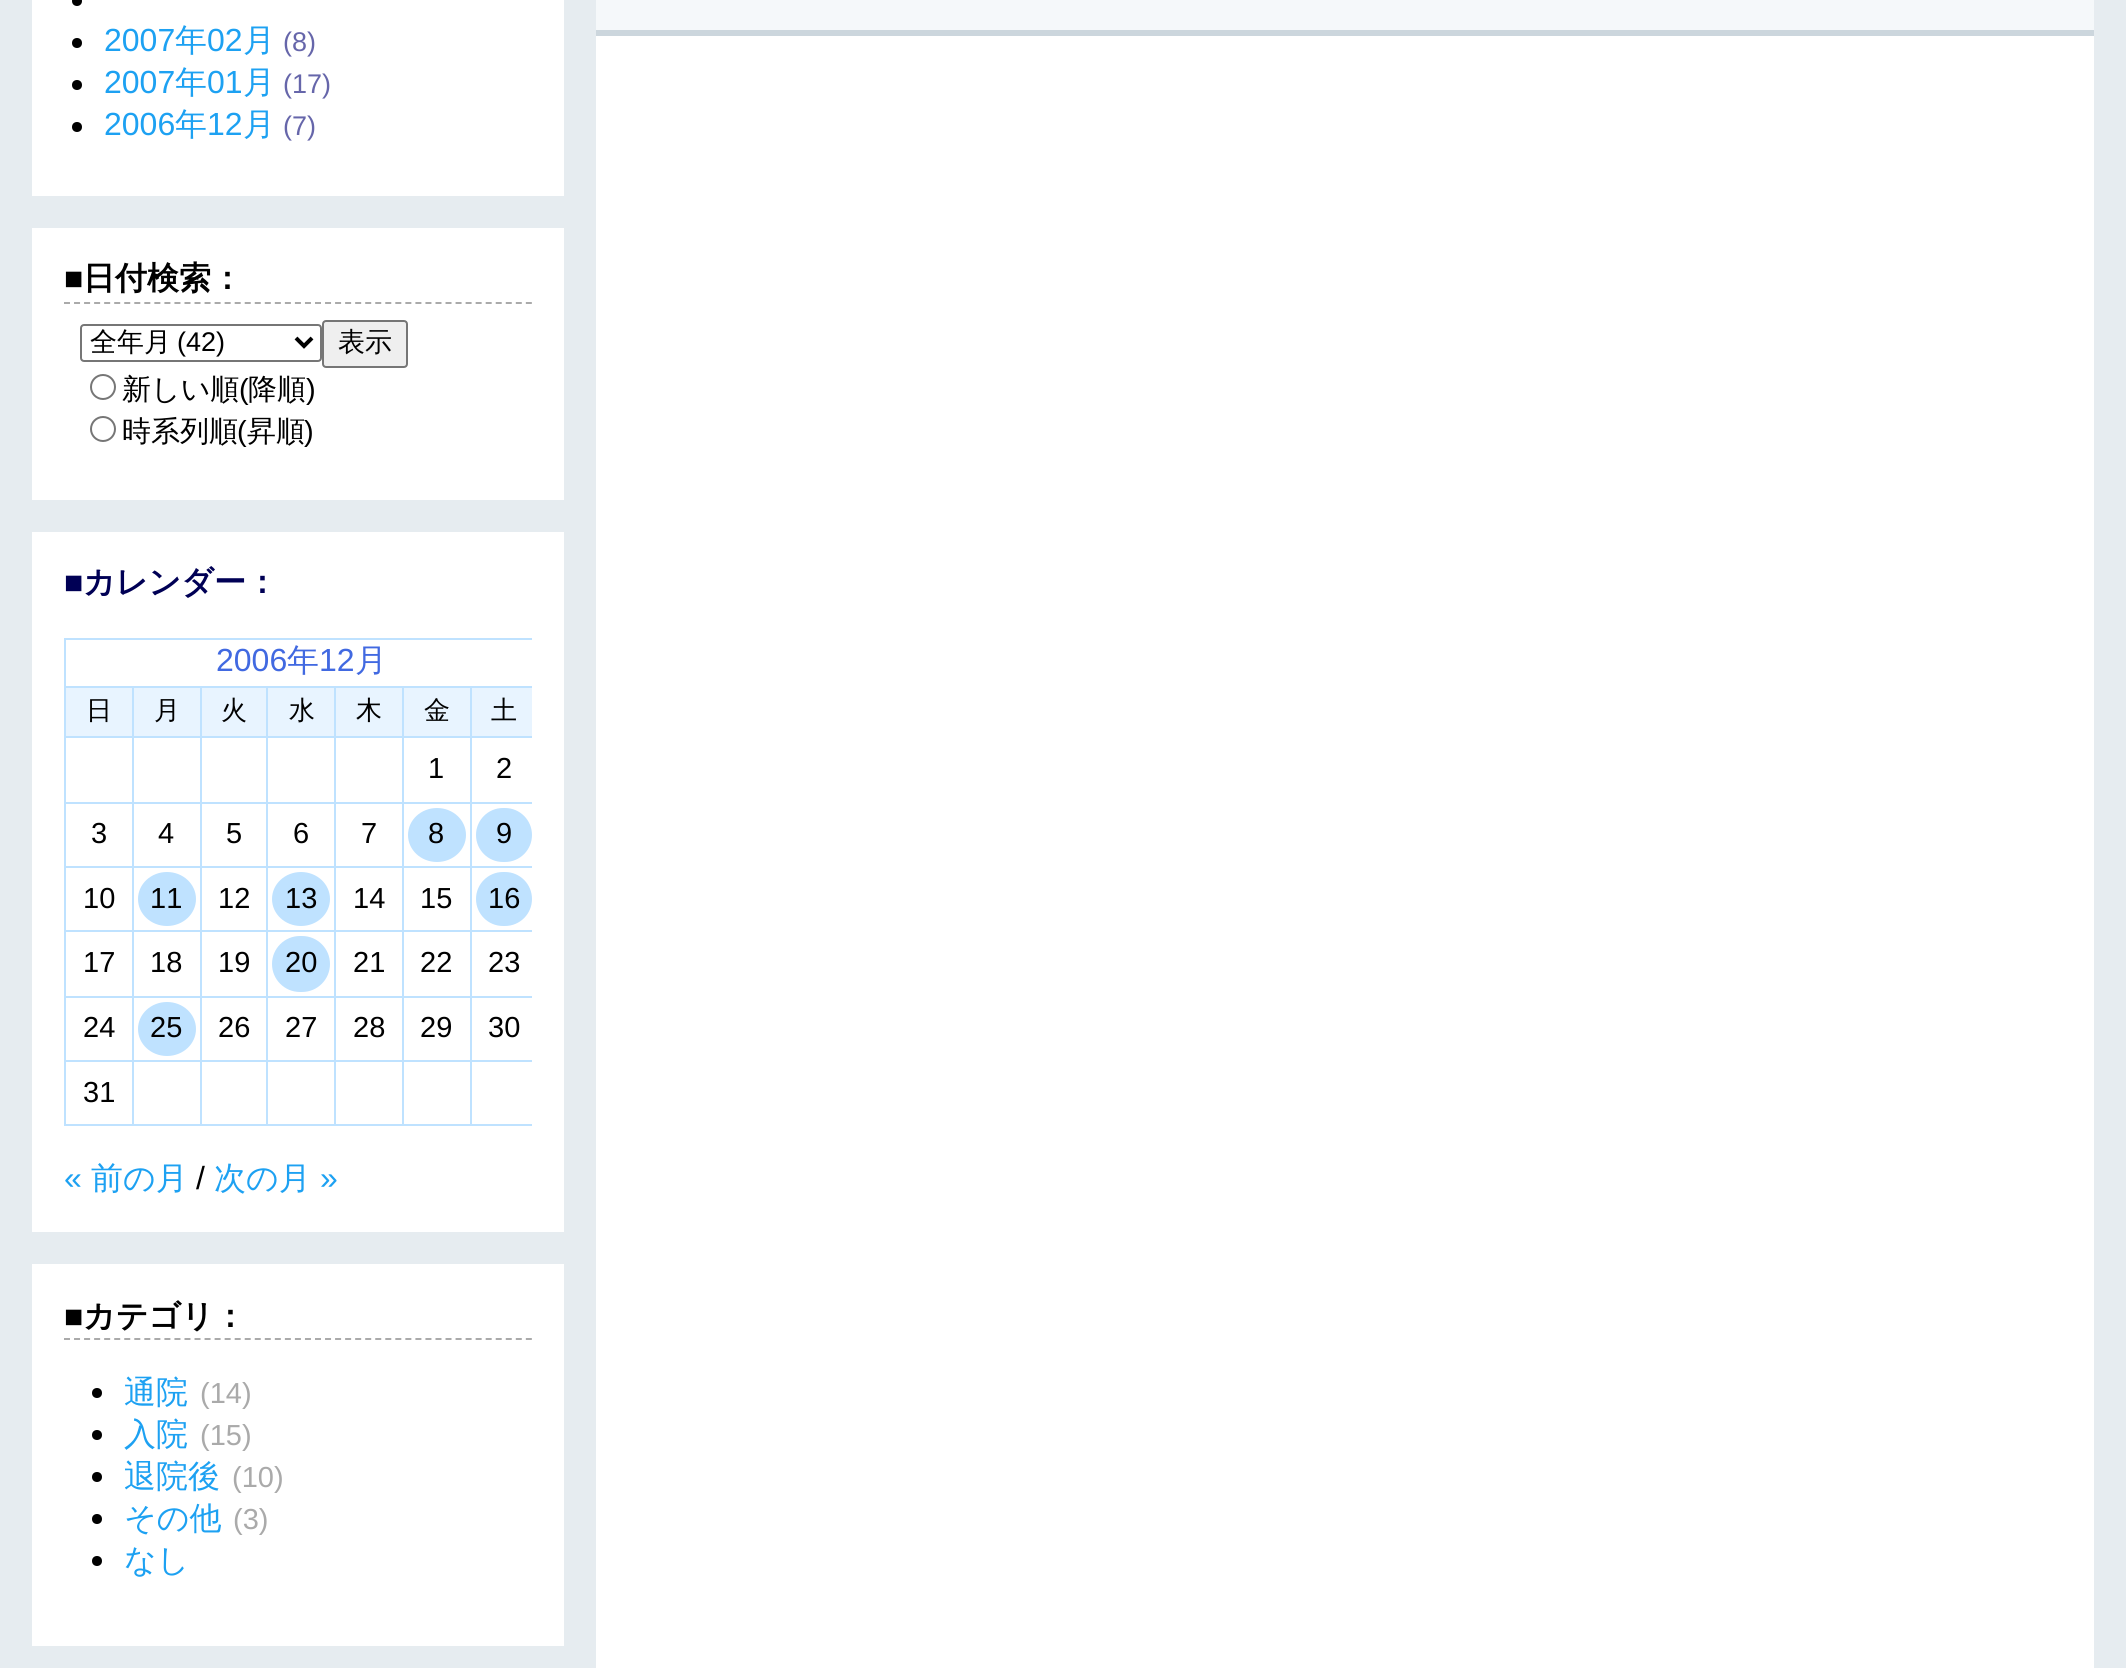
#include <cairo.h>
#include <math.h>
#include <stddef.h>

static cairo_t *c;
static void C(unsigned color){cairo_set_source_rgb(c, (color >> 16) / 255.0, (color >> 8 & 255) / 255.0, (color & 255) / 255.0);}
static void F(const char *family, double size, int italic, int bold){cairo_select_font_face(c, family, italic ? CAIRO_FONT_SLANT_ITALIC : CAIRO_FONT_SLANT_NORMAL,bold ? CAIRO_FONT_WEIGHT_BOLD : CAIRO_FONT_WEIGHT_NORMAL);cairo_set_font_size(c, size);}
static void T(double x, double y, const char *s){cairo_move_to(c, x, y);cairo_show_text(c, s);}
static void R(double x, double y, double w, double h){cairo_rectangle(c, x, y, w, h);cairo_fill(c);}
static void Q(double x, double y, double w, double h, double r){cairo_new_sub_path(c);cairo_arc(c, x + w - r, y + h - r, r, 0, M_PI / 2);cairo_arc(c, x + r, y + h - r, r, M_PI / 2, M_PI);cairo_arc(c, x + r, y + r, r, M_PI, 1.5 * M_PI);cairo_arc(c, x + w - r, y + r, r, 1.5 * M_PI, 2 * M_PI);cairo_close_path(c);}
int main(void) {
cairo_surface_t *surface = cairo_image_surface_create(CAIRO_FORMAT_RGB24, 2126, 1668);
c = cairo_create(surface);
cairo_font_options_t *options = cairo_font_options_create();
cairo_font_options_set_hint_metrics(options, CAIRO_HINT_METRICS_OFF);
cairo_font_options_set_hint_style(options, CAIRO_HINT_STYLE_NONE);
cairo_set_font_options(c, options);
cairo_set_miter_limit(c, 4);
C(0xe6ecf0);
cairo_paint(c);
C(0xffffff);
R(32,0,532,196);
C(0x000000);
cairo_arc(c,77,1,5,0,2 * M_PI);
cairo_fill(c);
cairo_arc(c,77,43,5,0,2 * M_PI);
cairo_fill(c);
F("Liberation Sans",32,0,0);
C(0x1da1f2);
T(104,51,"2007");
F("WenQuanYi Zen Hei Medium",32,0,0);
T(175,51,"年");
F("Liberation Sans",32,0,0);
T(207,51,"02");
F("WenQuanYi Zen Hei Medium",32,0,0);
T(243,51,"月");
F("Liberation Sans",27,0,0);
C(0x6666aa);
T(283,51,"(8)");
C(0x000000);
cairo_new_path(c);
cairo_arc(c,77,85,5,0,2 * M_PI);
cairo_fill(c);
F("Liberation Sans",32,0,0);
C(0x1da1f2);
T(104,93,"2007");
F("WenQuanYi Zen Hei Medium",32,0,0);
T(175,93,"年");
F("Liberation Sans",32,0,0);
T(207,93,"01");
F("WenQuanYi Zen Hei Medium",32,0,0);
T(243,93,"月");
F("Liberation Sans",27,0,0);
C(0x6666aa);
T(283,93,"(17)");
C(0x000000);
cairo_new_path(c);
cairo_arc(c,77,127,5,0,2 * M_PI);
cairo_fill(c);
F("Liberation Sans",32,0,0);
C(0x1da1f2);
T(104,135,"2006");
F("WenQuanYi Zen Hei Medium",32,0,0);
T(175,135,"年");
F("Liberation Sans",32,0,0);
T(207,135,"12");
F("WenQuanYi Zen Hei Medium",32,0,0);
T(243,135,"月");
F("Liberation Sans",27,0,0);
C(0x6666aa);
T(283,135,"(7)");
C(0xffffff);
R(32,228,532,272);
cairo_new_path(c);
cairo_move_to(c,64,303);
cairo_line_to(c,532,303);
C(0xaaaaaa);
cairo_set_dash(c,(double[]){6,4.04},2,0);
cairo_stroke(c);
F("Liberation Sans",32,0,1);
C(0x000000);
T(64,289,"■");
F("WenQuanYi Zen Hei",32,0,1);
T(83,289,"日付検索：");
Q(81,325,240,36,3);
C(0x767676);
cairo_set_dash(c,NULL,0,0);
cairo_stroke(c);
cairo_new_path(c);
cairo_move_to(c,296,338);
cairo_line_to(c,304,346);
cairo_line_to(c,312,338);
C(0x000000);
cairo_set_line_width(c,4);
cairo_stroke(c);
F("WenQuanYi Zen Hei Medium",27,0,0);
T(90,351,"全年月");
F("Liberation Sans",27,0,0);
T(177,351,"(42)");
C(0xefefef);
Q(323,321,84,46,3);
cairo_fill_preserve(c);
C(0x767676);
cairo_set_line_width(c,2);
cairo_stroke(c);
F("WenQuanYi Zen Hei Medium",27,0,0);
C(0x000000);
T(338,351,"表示");
cairo_new_path(c);
cairo_arc(c,103,387,12,0,2 * M_PI);
C(0x767676);
cairo_stroke(c);
F("WenQuanYi Zen Hei Medium",29,0,0);
C(0x000000);
T(122,399,"新しい順");
F("Liberation Sans",29,0,0);
T(239,399,"(");
F("WenQuanYi Zen Hei Medium",29,0,0);
T(248,399,"降順");
F("Liberation Sans",29,0,0);
T(306,399,")");
cairo_new_path(c);
cairo_arc(c,103,429,12,0,2 * M_PI);
C(0x767676);
cairo_stroke(c);
F("WenQuanYi Zen Hei Medium",29,0,0);
C(0x000000);
T(122,441,"時系列順");
F("Liberation Sans",29,0,0);
T(237,441,"(");
F("WenQuanYi Zen Hei Medium",29,0,0);
T(247,441,"昇順");
F("Liberation Sans",29,0,0);
T(304,441,")");
C(0xffffff);
R(32,532,532,700);
F("Liberation Sans",32,0,1);
C(0x000055);
T(64,593,"■");
F("WenQuanYi Zen Hei",32,0,1);
T(83,593,"カレンダー：");
C(0xbfe2ff);
R(64,638,468,2);
R(64,1124,468,2);
R(64,638,2,488);
F("Liberation Sans",32,0,0);
C(0x4169e1);
T(216,671,"2006");
F("WenQuanYi Zen Hei Medium",32,0,0);
T(287,671,"年");
F("Liberation Sans",32,0,0);
T(319,671,"12");
F("WenQuanYi Zen Hei Medium",32,0,0);
T(355,671,"月");
C(0xe8f4ff);
R(66,688,66,48);
C(0xbfe2ff);
R(470,686,62,2);
R(470,736,62,2);
R(470,802,62,2);
R(470,866,62,2);
R(470,930,62,2);
R(470,996,62,2);
R(470,1060,62,2);
R(470,1060,2,66);
R(402,1060,70,2);
R(470,996,2,66);
R(402,996,70,2);
R(470,930,2,68);
R(402,930,70,2);
R(470,866,2,66);
R(402,866,70,2);
R(470,802,2,66);
R(402,802,70,2);
R(470,736,2,68);
R(402,736,70,2);
R(470,686,2,52);
R(402,686,70,2);
R(402,1060,2,66);
R(334,1060,70,2);
R(402,996,2,66);
R(334,996,70,2);
R(402,930,2,68);
R(334,930,70,2);
R(402,866,2,66);
R(334,866,70,2);
R(402,802,2,66);
R(334,802,70,2);
R(402,736,2,68);
R(334,736,70,2);
R(402,686,2,52);
R(334,686,70,2);
R(334,1060,2,66);
R(266,1060,70,2);
R(334,996,2,66);
R(266,996,70,2);
R(334,930,2,68);
R(266,930,70,2);
R(334,866,2,66);
R(266,866,70,2);
R(334,802,2,66);
R(266,802,70,2);
R(334,736,2,68);
R(266,736,70,2);
R(334,686,2,52);
R(266,686,70,2);
R(266,1060,2,66);
R(200,1060,68,2);
R(266,996,2,66);
R(200,996,68,2);
R(266,930,2,68);
R(200,930,68,2);
R(266,866,2,66);
R(200,866,68,2);
R(266,802,2,66);
R(200,802,68,2);
R(266,736,2,68);
R(200,736,68,2);
R(266,686,2,52);
R(200,686,68,2);
R(200,1060,2,66);
R(132,1060,70,2);
R(200,996,2,66);
R(132,996,70,2);
R(200,930,2,68);
R(132,930,70,2);
R(200,866,2,66);
R(132,866,70,2);
R(200,802,2,66);
R(132,802,70,2);
R(200,736,2,68);
R(132,736,70,2);
R(200,686,2,52);
R(132,686,70,2);
R(132,1060,2,66);
R(64,1060,70,2);
R(132,996,2,66);
R(64,996,70,2);
R(132,930,2,68);
R(64,930,70,2);
R(132,866,2,66);
R(64,866,70,2);
R(132,802,2,66);
R(64,802,70,2);
R(132,736,2,68);
R(64,736,70,2);
R(132,686,2,52);
R(64,686,70,2);
F("WenQuanYi Zen Hei Medium",26,0,0);
C(0x000000);
T(86,719,"日");
C(0xe8f4ff);
R(134,688,66,48);
C(0x000000);
T(154,719,"月");
C(0xe8f4ff);
R(202,688,64,48);
C(0x000000);
T(221,719,"火");
C(0xe8f4ff);
R(268,688,66,48);
C(0x000000);
T(289,719,"水");
C(0xe8f4ff);
R(336,688,66,48);
C(0x000000);
T(356,719,"木");
C(0xe8f4ff);
R(404,688,66,48);
C(0x000000);
T(424,719,"金");
C(0xe8f4ff);
R(472,688,60,48);
C(0x000000);
T(491,719,"土");
F("Liberation Sans",29,0,0);
T(428,778,"1");
T(496,778,"2");
T(91,843,"3");
T(158,843,"4");
T(226,843,"5");
T(293,843,"6");
T(361,843,"7");
C(0xbfe2ff);
cairo_new_path(c);
cairo_move_to(c,437,808);
cairo_curve_to(c,453,808,466,820,466,835);
cairo_curve_to(c,466,850,453,862,437,862);
cairo_curve_to(c,421,862,408,850,408,835);
cairo_curve_to(c,408,820,421,808,437,808);
cairo_close_path(c);
cairo_fill(c);
C(0x000000);
T(428,843,"8");
C(0xbfe2ff);
Q(476,808,56,54,27);
cairo_fill(c);
C(0x000000);
T(496,843,"9");
T(83,908,"10");
C(0xbfe2ff);
cairo_new_path(c);
cairo_move_to(c,167,872);
cairo_curve_to(c,183,872,196,884,196,899);
cairo_curve_to(c,196,914,183,926,167,926);
cairo_curve_to(c,151,926,138,914,138,899);
cairo_curve_to(c,138,884,151,872,167,872);
cairo_close_path(c);
cairo_fill(c);
C(0x000000);
T(150,908,"11");
T(218,908,"12");
C(0xbfe2ff);
cairo_new_path(c);
cairo_move_to(c,301,872);
cairo_curve_to(c,317,872,330,884,330,899);
cairo_curve_to(c,330,914,317,926,301,926);
cairo_curve_to(c,285,926,272,914,272,899);
cairo_curve_to(c,272,884,285,872,301,872);
cairo_close_path(c);
cairo_fill(c);
C(0x000000);
T(285,908,"13");
T(353,908,"14");
T(420,908,"15");
C(0xbfe2ff);
Q(476,872,56,54,27);
cairo_fill(c);
C(0x000000);
T(488,908,"16");
T(83,972,"17");
T(150,972,"18");
T(218,972,"19");
C(0xbfe2ff);
Q(272,936,58,56,28);
cairo_fill(c);
C(0x000000);
T(285,972,"20");
T(353,972,"21");
T(420,972,"22");
T(488,972,"23");
T(83,1037,"24");
C(0xbfe2ff);
cairo_new_path(c);
cairo_move_to(c,167,1002);
cairo_curve_to(c,183,1002,196,1014,196,1029);
cairo_curve_to(c,196,1044,183,1056,167,1056);
cairo_curve_to(c,151,1056,138,1044,138,1029);
cairo_curve_to(c,138,1014,151,1002,167,1002);
cairo_close_path(c);
cairo_fill(c);
C(0x000000);
T(150,1037,"25");
T(218,1037,"26");
T(285,1037,"27");
T(353,1037,"28");
T(420,1037,"29");
T(488,1037,"30");
T(83,1102,"31");
F("Liberation Sans",32,0,0);
C(0x1da1f2);
T(64,1189,"«");
F("WenQuanYi Zen Hei Medium",32,0,0);
T(91,1189,"前の月");
F("Liberation Sans",32,0,0);
C(0x000000);
T(196,1189,"/");
F("WenQuanYi Zen Hei Medium",32,0,0);
C(0x1da1f2);
T(214,1189,"次の月");
F("Liberation Sans",32,0,0);
T(320,1189,"»");
C(0xffffff);
R(32,1264,532,382);
cairo_new_path(c);
cairo_move_to(c,64,1339);
cairo_line_to(c,532,1339);
C(0xaaaaaa);
cairo_set_dash(c,(double[]){6,4.04},2,0);
cairo_stroke(c);
F("Liberation Sans",32,0,1);
C(0x000000);
T(64,1327,"■");
F("WenQuanYi Zen Hei",32,0,1);
T(83,1327,"カテゴリ：");
cairo_new_path(c);
cairo_arc(c,97,1393,5,0,2 * M_PI);
cairo_fill(c);
F("WenQuanYi Zen Hei Medium",32,0,0);
C(0x1da1f2);
T(124,1403,"通院");
F("Liberation Sans",29,0,0);
C(0xaaaaaa);
T(200,1403,"(14)");
C(0x000000);
cairo_new_path(c);
cairo_arc(c,97,1435,5,0,2 * M_PI);
cairo_fill(c);
F("WenQuanYi Zen Hei Medium",32,0,0);
C(0x1da1f2);
T(124,1445,"入院");
F("Liberation Sans",29,0,0);
C(0xaaaaaa);
T(200,1445,"(15)");
C(0x000000);
cairo_new_path(c);
cairo_arc(c,97,1477,5,0,2 * M_PI);
cairo_fill(c);
F("WenQuanYi Zen Hei Medium",32,0,0);
C(0x1da1f2);
T(124,1487,"退院後");
F("Liberation Sans",29,0,0);
C(0xaaaaaa);
T(232,1487,"(10)");
C(0x000000);
cairo_new_path(c);
cairo_arc(c,97,1519,5,0,2 * M_PI);
cairo_fill(c);
F("WenQuanYi Zen Hei Medium",32,0,0);
C(0x1da1f2);
T(124,1529,"その他");
F("Liberation Sans",29,0,0);
C(0xaaaaaa);
T(233,1529,"(3)");
C(0x000000);
cairo_new_path(c);
cairo_arc(c,97,1561,5,0,2 * M_PI);
cairo_fill(c);
F("WenQuanYi Zen Hei Medium",32,0,0);
C(0x1da1f2);
T(124,1571,"なし");
C(0xffffff);
R(596,36,1498,1632);
C(0xf5f8fa);
R(596,0,1498,30);
C(0xccd6dd);
R(596,30,1498,6);
cairo_surface_write_to_png(surface, "o.png");
cairo_font_options_destroy(options);
cairo_destroy(c);
cairo_surface_destroy(surface);
return 0;
}
